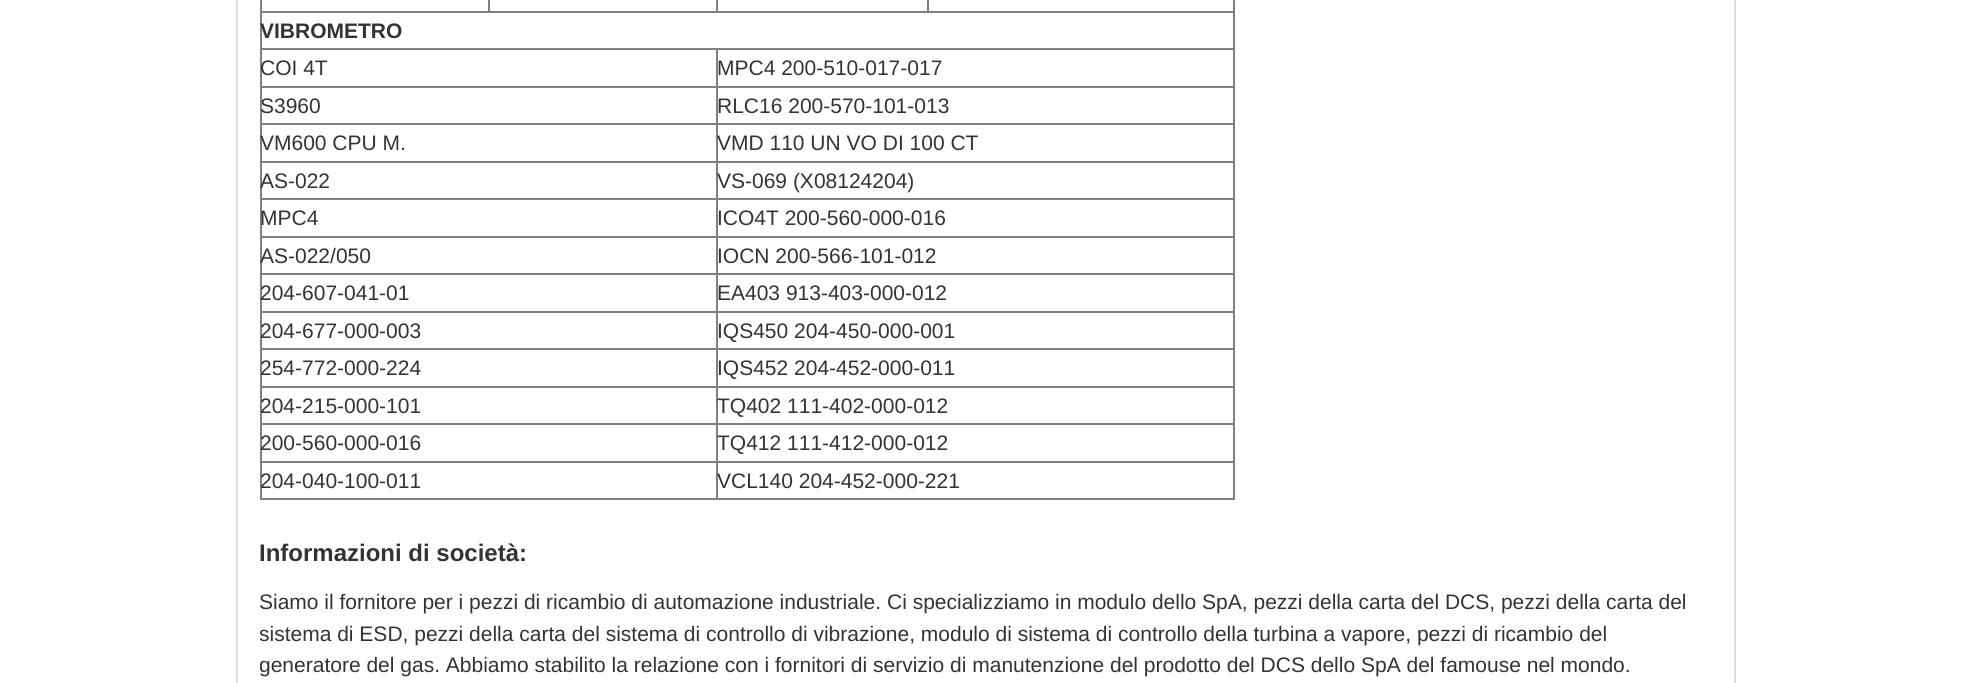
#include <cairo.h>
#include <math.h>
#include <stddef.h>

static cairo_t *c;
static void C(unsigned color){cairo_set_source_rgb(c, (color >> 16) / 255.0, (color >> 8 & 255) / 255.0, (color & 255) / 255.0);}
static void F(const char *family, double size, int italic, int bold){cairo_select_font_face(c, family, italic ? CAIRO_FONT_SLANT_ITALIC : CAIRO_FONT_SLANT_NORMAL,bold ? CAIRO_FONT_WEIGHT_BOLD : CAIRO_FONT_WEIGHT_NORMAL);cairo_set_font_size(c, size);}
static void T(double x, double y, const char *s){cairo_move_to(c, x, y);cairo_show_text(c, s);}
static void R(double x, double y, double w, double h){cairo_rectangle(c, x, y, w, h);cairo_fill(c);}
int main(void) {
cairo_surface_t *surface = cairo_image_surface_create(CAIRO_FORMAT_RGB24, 1969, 683);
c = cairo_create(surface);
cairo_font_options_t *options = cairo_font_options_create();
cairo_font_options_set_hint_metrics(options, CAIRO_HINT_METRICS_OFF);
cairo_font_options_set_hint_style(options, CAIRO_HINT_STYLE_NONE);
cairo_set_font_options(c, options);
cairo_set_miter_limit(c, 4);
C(0xffffff);
cairo_paint(c);
cairo_rectangle(c,237,-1,1498,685);
C(0xdddddd);
cairo_stroke(c);
C(0x808080);
R(1233,0,2,500);
R(260,498,975,2);
R(260,0,2,500);
R(260,11,975,2);
R(488,0,2,12);
R(716,0,2,12);
R(927,0,2,12);
F("Liberation Sans",21,0,1);
C(0x333333);
T(260,38,"VIBROMETRO");
C(0x808080);
R(716,48,519,2);
R(716,86,519,2);
R(716,123,519,2);
R(716,161,519,2);
R(716,198,519,2);
R(716,236,519,2);
R(716,273,519,2);
R(716,311,519,2);
R(716,348,519,2);
R(716,386,519,2);
R(716,423,519,2);
R(716,461,519,2);
R(716,461,2,39);
R(260,461,457,2);
R(716,423,2,39);
R(260,423,457,2);
R(716,386,2,39);
R(260,386,457,2);
R(716,348,2,39);
R(260,348,457,2);
R(716,311,2,39);
R(260,311,457,2);
R(716,273,2,39);
R(260,273,457,2);
R(716,236,2,39);
R(260,236,457,2);
R(716,198,2,39);
R(260,198,457,2);
R(716,161,2,39);
R(260,161,457,2);
R(716,123,2,39);
R(260,123,457,2);
R(716,86,2,39);
R(260,86,457,2);
R(716,48,2,39);
R(260,48,457,2);
F("Liberation Sans",21,0,0);
C(0x333333);
T(260,75,"COI 4T");
T(717,75,"MPC4 200-510-017-017");
T(260,113,"S3960");
T(717,113,"RLC16 200-570-101-013");
T(260,150,"VM600 CPU M.");
T(717,150,"VMD 110 UN VO DI 100 CT");
T(260,188,"AS-022");
T(717,188,"VS-069 (X08124204)");
T(260,225,"MPC4");
T(717,225,"ICO4T 200-560-000-016");
T(260,263,"AS-022/050");
T(717,263,"IOCN 200-566-101-012");
T(260,300,"204-607-041-01");
T(717,300,"EA403 913-403-000-012");
T(260,338,"204-677-000-003");
T(717,338,"IQS450 204-450-000-001");
T(260,375,"254-772-000-224");
T(717,375,"IQS452 204-452-000-011");
T(260,413,"204-215-000-101");
T(717,413,"TQ402 111-402-000-012");
T(260,450,"200-560-000-016");
T(717,450,"TQ412 111-412-000-012");
T(260,488,"204-040-100-011");
T(717,488,"VCL140 204-452-000-221");
F("Liberation Sans",24,0,1);
T(259,561,"Informazioni di società:");
F("Liberation Sans",21,0,0);
T(259,609,"Siamo il fornitore per i pezzi di ricambio di automazione industriale. Ci specializziamo in modulo dello SpA, pezzi della carta del DCS, pezzi della carta del");
cairo_save(c);
cairo_rectangle(c,260,0,1452,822);
cairo_clip(c);
T(259,641,"sistema di ESD, pezzi della carta del sistema di controllo di vibrazione, modulo di sistema di controllo della turbina a vapore, pezzi di ricambio del");
T(259,672,"generatore del gas. Abbiamo stabilito la relazione con i fornitori di servizio di manutenzione del prodotto del DCS dello SpA del famouse nel mondo.");
cairo_restore(c);
cairo_surface_write_to_png(surface, "o.png");
cairo_font_options_destroy(options);
cairo_destroy(c);
cairo_surface_destroy(surface);
return 0;
}
